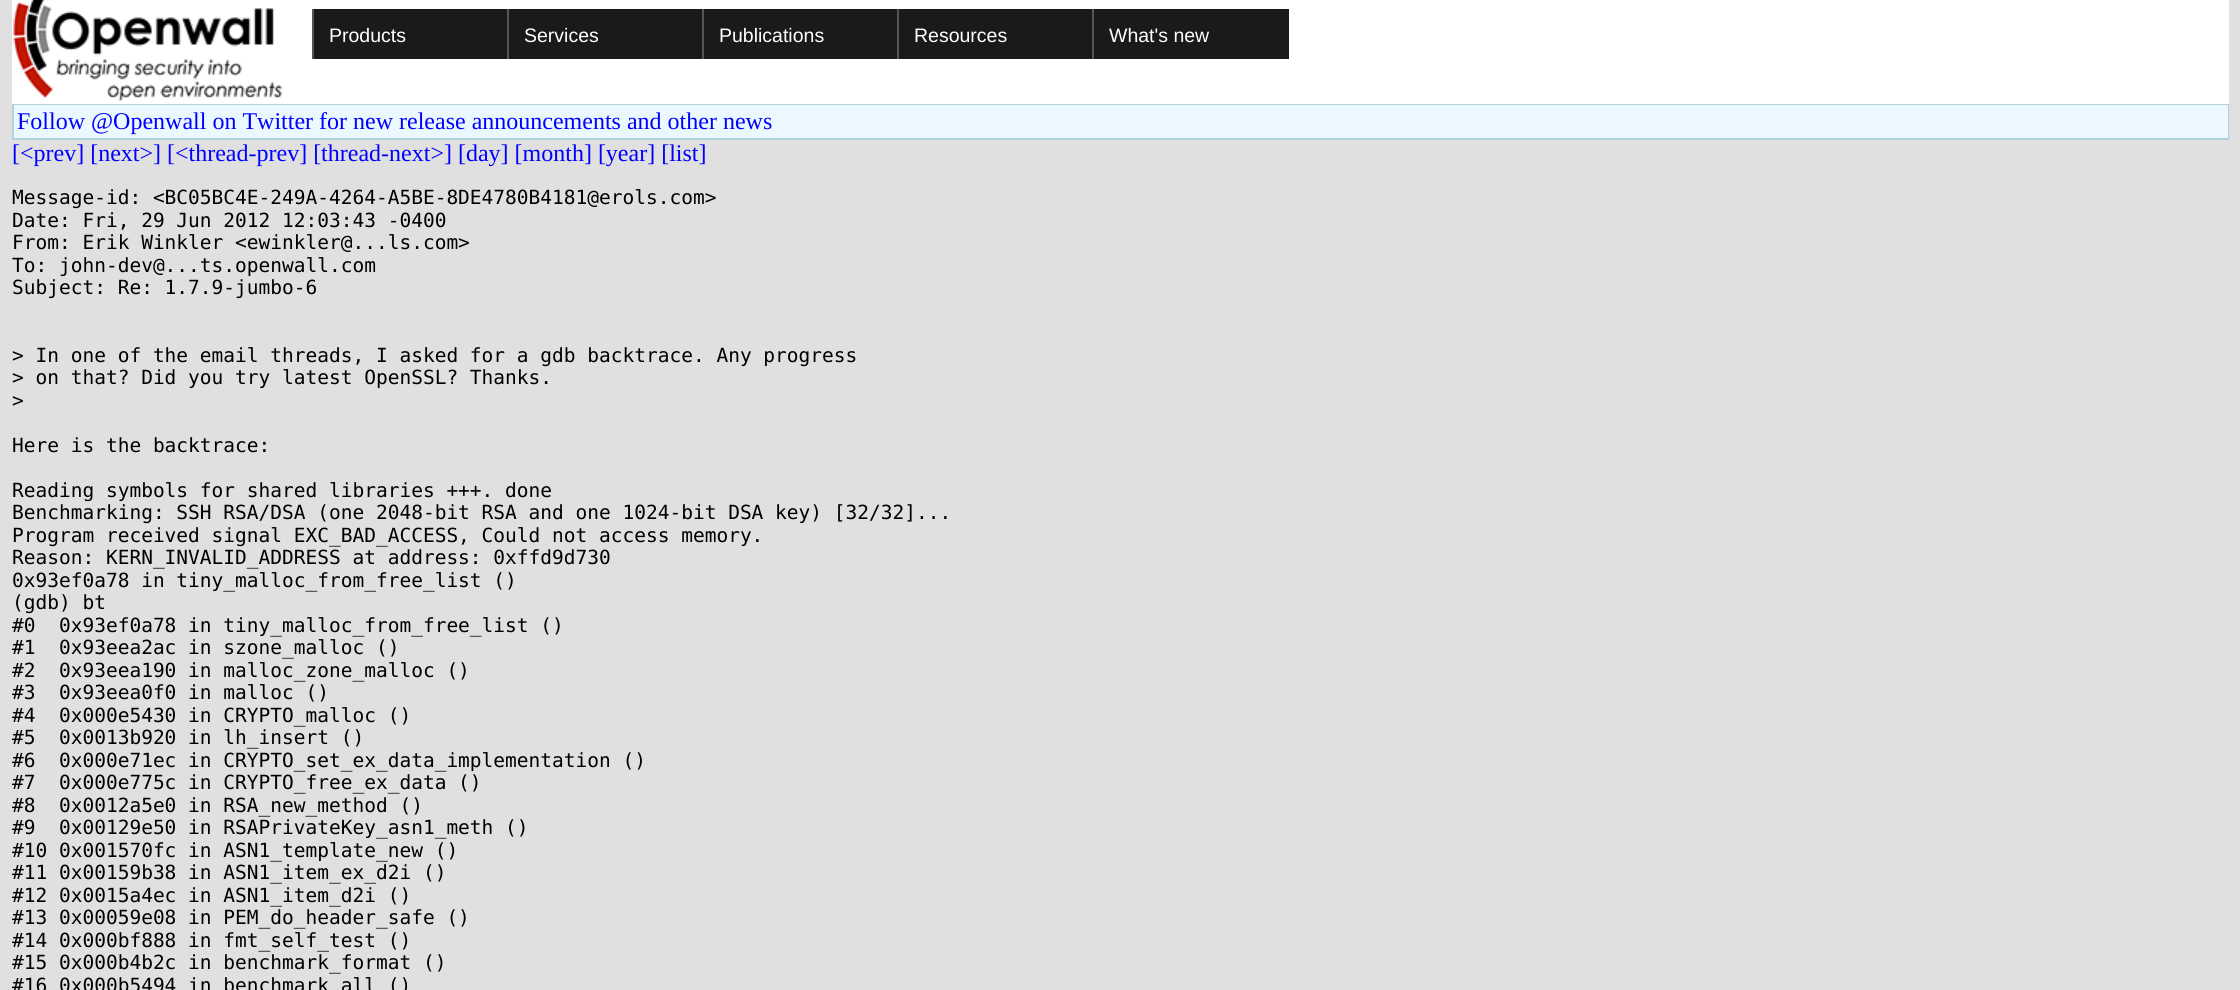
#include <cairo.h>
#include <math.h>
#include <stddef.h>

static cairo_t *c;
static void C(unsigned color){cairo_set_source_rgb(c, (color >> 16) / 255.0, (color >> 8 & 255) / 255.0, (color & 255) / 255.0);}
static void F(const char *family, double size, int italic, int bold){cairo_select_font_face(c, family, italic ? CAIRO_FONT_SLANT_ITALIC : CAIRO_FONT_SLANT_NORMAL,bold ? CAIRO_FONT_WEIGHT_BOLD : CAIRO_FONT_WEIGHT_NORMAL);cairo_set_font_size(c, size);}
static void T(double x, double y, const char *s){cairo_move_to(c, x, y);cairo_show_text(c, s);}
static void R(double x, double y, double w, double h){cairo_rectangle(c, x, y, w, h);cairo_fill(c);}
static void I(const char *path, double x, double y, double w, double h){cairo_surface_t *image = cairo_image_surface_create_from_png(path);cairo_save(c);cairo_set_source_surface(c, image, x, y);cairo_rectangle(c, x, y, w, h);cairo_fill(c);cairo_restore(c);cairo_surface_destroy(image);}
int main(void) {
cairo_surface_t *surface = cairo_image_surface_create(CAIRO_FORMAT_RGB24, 2240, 990);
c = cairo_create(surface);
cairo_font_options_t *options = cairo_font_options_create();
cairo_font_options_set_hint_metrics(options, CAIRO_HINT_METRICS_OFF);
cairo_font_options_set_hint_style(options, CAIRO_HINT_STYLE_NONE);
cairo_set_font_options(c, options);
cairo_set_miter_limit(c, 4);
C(0xe0e0e0);
cairo_paint(c);
C(0xffffff);
R(12,0,2217,104);
I("1.png",13,0,270,102);
C(0x1a1a1a);
R(314,9,193,50);
C(0x555555);
R(312,9,2,50);
F("Liberation Sans",19.5,0,0);
C(0xffffff);
T(329,42,"Products");
C(0x1a1a1a);
R(509,9,193,50);
C(0x555555);
R(507,9,2,50);
C(0xffffff);
T(524,42,"Services");
C(0x1a1a1a);
R(704,9,193,50);
C(0x555555);
R(702,9,2,50);
C(0xffffff);
T(719,42,"Publications");
C(0x1a1a1a);
R(899,9,193,50);
C(0x555555);
R(897,9,2,50);
C(0xffffff);
T(914,42,"Resources");
C(0x1a1a1a);
R(1094,9,195,50);
C(0x555555);
R(1092,9,2,50);
C(0xffffff);
T(1109,42,"What's new");
C(0xb4d0dc);
R(12,104,2217,36);
C(0xecf8ff);
R(14,105,2214,33);
F("Liberation Serif",24,0,0);
C(0x0000ff);
T(17,129,"Follow @Openwall on Twitter for new release announcements and other news");
T(12,161,"[<prev] [next>] [<thread-prev] [thread-next>] [day] [month] [year] [list]");
F("DejaVu Sans Mono",19.5,0,0);
C(0x000000);
T(12,204,"Message-id: <BC05BC4E-249A-4264-A5BE-8DE4780B4181@erols.com>");
T(12,227,"Date: Fri, 29 Jun 2012 12:03:43 -0400");
T(12,249,"From: Erik Winkler <ewinkler@...ls.com>");
T(12,272,"To: john-dev@...ts.openwall.com");
T(12,294,"Subject: Re: 1.7.9-jumbo-6");
T(12,362,"> In one of the email threads, I asked for a gdb backtrace. Any progress");
T(12,384,"> on that? Did you try latest OpenSSL? Thanks.");
T(12,407,">");
T(12,452,"Here is the backtrace:");
T(12,497,"Reading symbols for shared libraries +++. done");
T(12,519,"Benchmarking: SSH RSA/DSA (one 2048-bit RSA and one 1024-bit DSA key) [32/32]...");
T(12,542,"Program received signal EXC_BAD_ACCESS, Could not access memory.");
T(12,564,"Reason: KERN_INVALID_ADDRESS at address: 0xffd9d730");
T(12,587,"0x93ef0a78 in tiny_malloc_from_free_list ()");
T(12,609,"(gdb) bt");
T(12,632,"#0  0x93ef0a78 in tiny_malloc_from_free_list ()");
T(12,654,"#1  0x93eea2ac in szone_malloc ()");
T(12,677,"#2  0x93eea190 in malloc_zone_malloc ()");
T(12,699,"#3  0x93eea0f0 in malloc ()");
T(12,722,"#4  0x000e5430 in CRYPTO_malloc ()");
T(12,744,"#5  0x0013b920 in lh_insert ()");
T(12,767,"#6  0x000e71ec in CRYPTO_set_ex_data_implementation ()");
T(12,789,"#7  0x000e775c in CRYPTO_free_ex_data ()");
T(12,812,"#8  0x0012a5e0 in RSA_new_method ()");
T(12,834,"#9  0x00129e50 in RSAPrivateKey_asn1_meth ()");
T(12,857,"#10 0x001570fc in ASN1_template_new ()");
T(12,879,"#11 0x00159b38 in ASN1_item_ex_d2i ()");
T(12,902,"#12 0x0015a4ec in ASN1_item_d2i ()");
T(12,924,"#13 0x00059e08 in PEM_do_header_safe ()");
T(12,947,"#14 0x000bf888 in fmt_self_test ()");
T(12,969,"#15 0x000b4b2c in benchmark_format ()");
T(12,992,"#16 0x000b5494 in benchmark_all ()");
cairo_surface_write_to_png(surface, "o.png");
cairo_font_options_destroy(options);
cairo_destroy(c);
cairo_surface_destroy(surface);
return 0;
}
